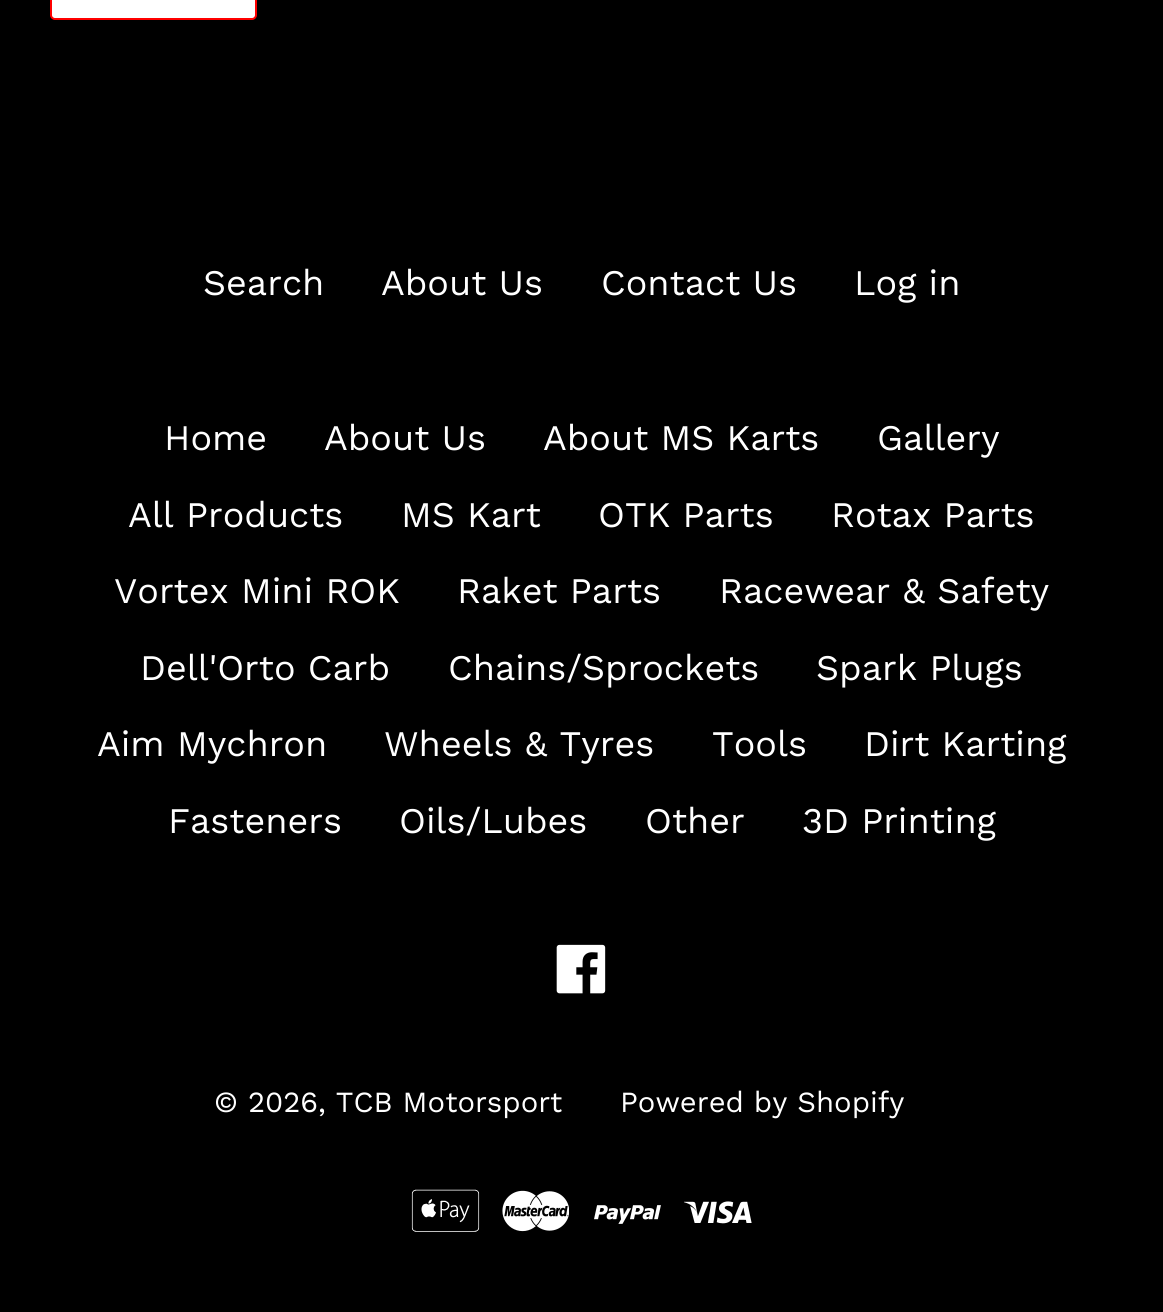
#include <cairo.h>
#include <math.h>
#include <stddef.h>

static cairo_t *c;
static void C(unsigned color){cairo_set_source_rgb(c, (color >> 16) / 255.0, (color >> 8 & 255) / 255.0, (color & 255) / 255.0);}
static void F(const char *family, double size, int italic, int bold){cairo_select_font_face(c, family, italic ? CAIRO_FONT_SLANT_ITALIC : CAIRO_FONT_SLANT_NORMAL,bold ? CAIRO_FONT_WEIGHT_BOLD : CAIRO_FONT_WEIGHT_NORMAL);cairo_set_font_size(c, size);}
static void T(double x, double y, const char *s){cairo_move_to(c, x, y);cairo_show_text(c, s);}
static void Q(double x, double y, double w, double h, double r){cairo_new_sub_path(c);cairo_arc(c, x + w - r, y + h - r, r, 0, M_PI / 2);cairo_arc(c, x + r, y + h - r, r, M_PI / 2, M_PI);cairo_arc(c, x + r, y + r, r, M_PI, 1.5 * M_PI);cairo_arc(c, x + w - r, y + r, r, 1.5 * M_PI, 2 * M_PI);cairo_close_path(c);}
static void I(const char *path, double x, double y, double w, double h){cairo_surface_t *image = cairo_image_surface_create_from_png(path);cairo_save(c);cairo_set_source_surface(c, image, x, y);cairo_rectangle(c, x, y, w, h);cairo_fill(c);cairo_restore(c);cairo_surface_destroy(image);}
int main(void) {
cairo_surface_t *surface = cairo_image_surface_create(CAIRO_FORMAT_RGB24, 1163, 1312);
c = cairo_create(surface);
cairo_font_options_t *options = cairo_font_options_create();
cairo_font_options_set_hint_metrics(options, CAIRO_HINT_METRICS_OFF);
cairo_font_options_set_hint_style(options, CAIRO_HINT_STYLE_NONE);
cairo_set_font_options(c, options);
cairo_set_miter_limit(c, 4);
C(0x000000);
cairo_paint(c);
C(0xffffff);
Q(51,-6,205,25,4);
cairo_fill_preserve(c);
C(0xff0000);
cairo_stroke(c);
F("Work Sans",36,0,0);
C(0xffffff);
T(203,295,"Search");
T(381,295,"About Us");
T(601,295,"Contact Us");
T(854,295,"Log in");
T(164,450,"Home");
T(324,450,"About Us");
T(543,450,"About MS Karts");
T(877,450,"Gallery");
T(128,527,"All Products");
T(401,527,"MS Kart");
T(598,527,"OTK Parts");
T(831,527,"Rotax Parts");
T(114,603,"Vortex Mini ROK");
T(457,603,"Raket Parts");
T(719,603,"Racewear & Safety");
T(140,680,"Dell'Orto Carb");
T(448,680,"Chains/Sprockets");
T(816,680,"Spark Plugs");
T(97,756,"Aim Mychron");
T(384,756,"Wheels & Tyres");
T(712,756,"Tools");
T(864,756,"Dirt Karting");
T(168,833,"Fasteners");
T(399,833,"Oils/Lubes");
T(645,833,"Other");
T(802,833,"3D Printing");
I("1.png",556,944,50,50);
F("Work Sans",29.25,0,0);
T(214,1112,"© 2026, TCB Motorsport");
T(620,1112,"Powered by Shopify");
I("2.png",411,1189,69,43);
I("3.png",502,1190,67,42);
I("4.png",594,1205,67,19);
I("5.png",684,1201,68,23);
cairo_surface_write_to_png(surface, "o.png");
cairo_font_options_destroy(options);
cairo_destroy(c);
cairo_surface_destroy(surface);
return 0;
}
